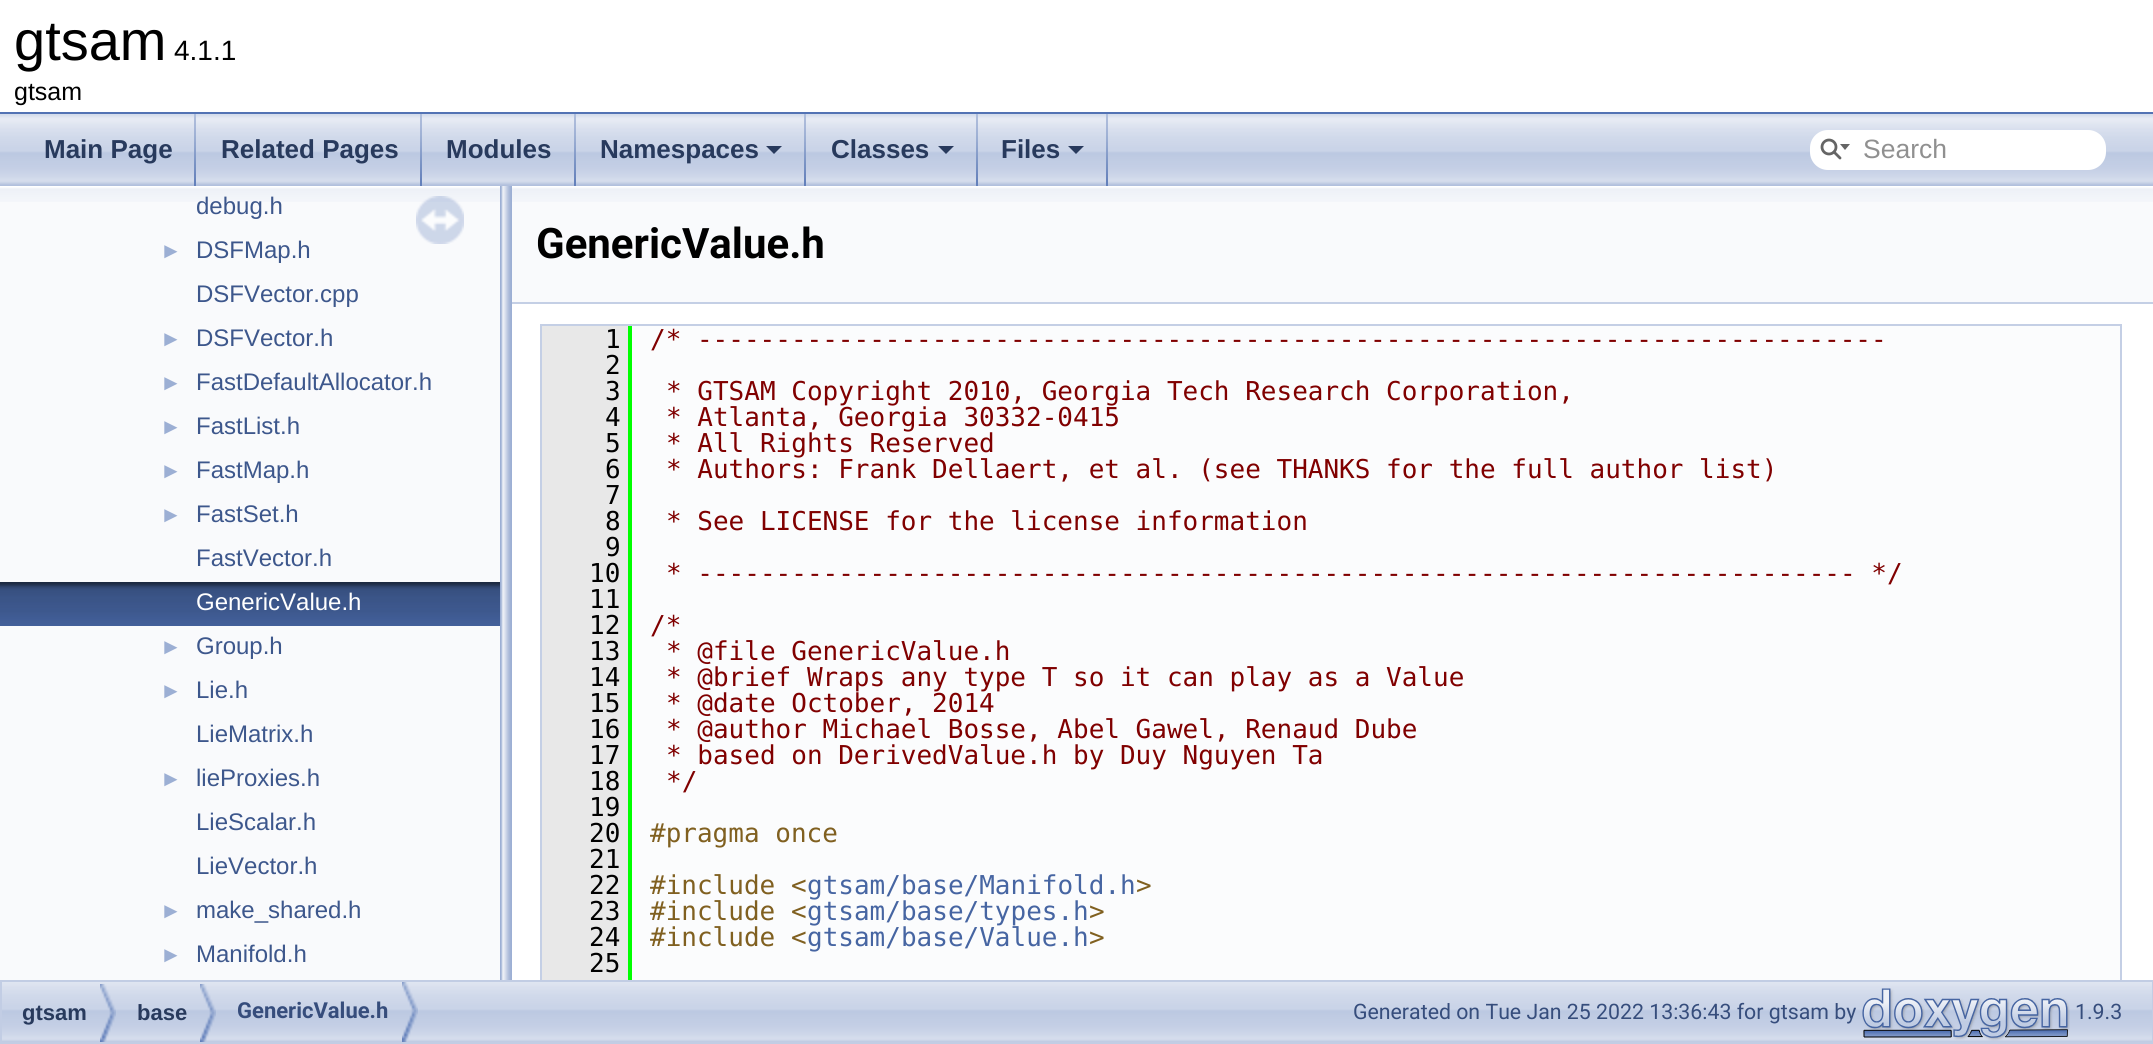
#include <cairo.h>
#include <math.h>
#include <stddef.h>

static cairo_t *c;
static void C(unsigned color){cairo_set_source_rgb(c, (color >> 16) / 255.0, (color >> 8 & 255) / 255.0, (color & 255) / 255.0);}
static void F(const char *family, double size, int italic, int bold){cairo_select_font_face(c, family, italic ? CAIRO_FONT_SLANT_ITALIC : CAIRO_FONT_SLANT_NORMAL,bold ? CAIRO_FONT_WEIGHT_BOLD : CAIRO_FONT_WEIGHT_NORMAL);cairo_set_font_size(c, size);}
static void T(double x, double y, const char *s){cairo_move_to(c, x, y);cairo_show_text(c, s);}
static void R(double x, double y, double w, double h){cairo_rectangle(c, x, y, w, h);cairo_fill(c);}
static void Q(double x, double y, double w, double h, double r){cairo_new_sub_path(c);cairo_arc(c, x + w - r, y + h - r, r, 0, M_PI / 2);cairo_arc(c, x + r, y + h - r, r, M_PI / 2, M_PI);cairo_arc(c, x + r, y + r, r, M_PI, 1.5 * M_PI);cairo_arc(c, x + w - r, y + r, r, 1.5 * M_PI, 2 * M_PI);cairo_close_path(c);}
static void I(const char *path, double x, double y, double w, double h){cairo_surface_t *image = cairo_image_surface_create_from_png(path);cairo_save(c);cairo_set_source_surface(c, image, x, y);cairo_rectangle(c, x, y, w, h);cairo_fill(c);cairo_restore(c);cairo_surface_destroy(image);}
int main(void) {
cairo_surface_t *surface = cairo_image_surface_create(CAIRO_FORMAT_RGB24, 2153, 1044);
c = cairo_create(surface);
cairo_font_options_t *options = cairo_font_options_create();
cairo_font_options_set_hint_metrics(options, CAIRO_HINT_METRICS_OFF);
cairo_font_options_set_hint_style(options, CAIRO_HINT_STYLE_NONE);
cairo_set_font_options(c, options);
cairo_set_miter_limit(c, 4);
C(0xffffff);
cairo_paint(c);
C(0x5373b4);
R(0,112,2153,2);
F("Liberation Sans",56,0,0);
C(0x000000);
T(14,60,"gtsam");
F("Liberation Sans",28,0,0);
T(174,60,"4.1.1");
F("Liberation Sans",25,0,0);
T(14,100,"gtsam");
I("1.png",0,114,2153,72);
I("2.png",194,114,2,72);
F("Liberation Sans",26,0,1);
C(0x283a5d);
T(44,158,"Main Page");
I("2.png",420,114,2,72);
T(221,158,"Related Pages");
I("2.png",574,114,2,72);
T(446,158,"Modules");
I("2.png",804,114,2,72);
T(600,158,"Namespaces");
cairo_new_path(c);
cairo_move_to(c,766,146);
cairo_line_to(c,782,146);
cairo_line_to(c,774,154);
cairo_close_path(c);
cairo_fill(c);
I("2.png",976,114,2,72);
T(831,158,"Classes");
cairo_new_path(c);
cairo_move_to(c,938,146);
cairo_line_to(c,954,146);
cairo_line_to(c,946,154);
cairo_close_path(c);
cairo_fill(c);
I("2.png",1106,114,2,72);
T(1001,158,"Files");
cairo_new_path(c);
cairo_move_to(c,1068,146);
cairo_line_to(c,1084,146);
cairo_line_to(c,1076,154);
cairo_close_path(c);
cairo_fill(c);
C(0xffffff);
Q(1810,130,296,40,18);
cairo_fill(c);
cairo_arc(c,1829,147,7,0,2 * M_PI);
C(0x656565);
cairo_set_line_width(c,2.8);
cairo_stroke(c);
cairo_new_path(c);
cairo_move_to(c,1840,144);
cairo_line_to(c,1845,150);
cairo_line_to(c,1850,144);
cairo_close_path(c);
cairo_fill(c);
cairo_new_path(c);
cairo_move_to(c,1834,152);
cairo_line_to(c,1840,158);
cairo_set_line_cap(c,CAIRO_LINE_CAP_ROUND);
cairo_stroke(c);
F("Liberation Sans",26.5,0,0);
C(0x909090);
T(1863,158,"Search");
C(0xf9fafc);
R(0,202,500,778);
I("3.png",0,186,500,16);
F("Liberation Sans",24,0,0);
C(0x3d578c);
T(196,214,"debug.h");
F("Liberation Sans",22,0,0);
C(0x9cafd4);
T(160,258,"►");
F("Liberation Sans",24,0,0);
C(0x3d578c);
T(196,258,"DSFMap.h");
T(196,302,"DSFVector.cpp");
F("Liberation Sans",22,0,0);
C(0x9cafd4);
T(160,346,"►");
F("Liberation Sans",24,0,0);
C(0x3d578c);
T(196,346,"DSFVector.h");
F("Liberation Sans",22,0,0);
C(0x9cafd4);
T(160,390,"►");
F("Liberation Sans",24,0,0);
C(0x3d578c);
T(196,390,"FastDefaultAllocator.h");
F("Liberation Sans",22,0,0);
C(0x9cafd4);
T(160,434,"►");
F("Liberation Sans",24,0,0);
C(0x3d578c);
T(196,434,"FastList.h");
F("Liberation Sans",22,0,0);
C(0x9cafd4);
T(160,478,"►");
F("Liberation Sans",24,0,0);
C(0x3d578c);
T(196,478,"FastMap.h");
F("Liberation Sans",22,0,0);
C(0x9cafd4);
T(160,522,"►");
F("Liberation Sans",24,0,0);
C(0x3d578c);
T(196,522,"FastSet.h");
T(196,566,"FastVector.h");
I("4.png",0,582,500,44);
C(0xffffff);
T(196,610,"GenericValue.h");
F("Liberation Sans",22,0,0);
C(0x9cafd4);
T(160,654,"►");
F("Liberation Sans",24,0,0);
C(0x3d578c);
T(196,654,"Group.h");
F("Liberation Sans",22,0,0);
C(0x9cafd4);
T(160,698,"►");
F("Liberation Sans",24,0,0);
C(0x3d578c);
T(196,698,"Lie.h");
T(196,742,"LieMatrix.h");
F("Liberation Sans",22,0,0);
C(0x9cafd4);
T(160,786,"►");
F("Liberation Sans",24,0,0);
C(0x3d578c);
T(196,786,"lieProxies.h");
T(196,830,"LieScalar.h");
T(196,874,"LieVector.h");
F("Liberation Sans",22,0,0);
C(0x9cafd4);
T(160,918,"►");
F("Liberation Sans",24,0,0);
C(0x3d578c);
T(196,918,"make_shared.h");
F("Liberation Sans",22,0,0);
C(0x9cafd4);
T(160,962,"►");
F("Liberation Sans",24,0,0);
C(0x3d578c);
T(196,962,"Manifold.h");
I("5.png",416,196,48,48);
I("6.png",500,186,12,794);
C(0xf9fafc);
R(512,202,1641,100);
I("7.png",512,186,1641,16);
C(0xc4cfe5);
R(512,302,1641,2);
F("Roboto",42,0,1);
C(0x000000);
T(536,258,"GenericValue.h");
C(0xfbfcfd);
R(632,326,1488,654);
cairo_rectangle(c,541,325,1580,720);
C(0xc4cfe5);
cairo_set_line_width(c,2);
cairo_set_line_cap(c,CAIRO_LINE_CAP_BUTT);
cairo_stroke(c);
C(0xe8e8e8);
R(542,326,86,648);
F("DejaVu Sans Mono",26,0,0);
C(0x000000);
T(605,348,"1");
C(0x00ff00);
R(628,326,4,652);
C(0x800000);
T(650,348,"/* ----------------------------------------------------------------------------");
C(0x000000);
T(605,374,"2");
T(605,400,"3");
C(0x800000);
T(666,400,"* GTSAM Copyright 2010, Georgia Tech Research Corporation,");
C(0x000000);
T(605,426,"4");
C(0x800000);
T(666,426,"* Atlanta, Georgia 30332-0415");
C(0x000000);
T(605,452,"5");
C(0x800000);
T(666,452,"* All Rights Reserved");
C(0x000000);
T(605,478,"6");
C(0x800000);
T(666,478,"* Authors: Frank Dellaert, et al. (see THANKS for the full author list)");
C(0x000000);
T(605,504,"7");
T(605,530,"8");
C(0x800000);
T(666,530,"* See LICENSE for the license information");
C(0x000000);
T(605,556,"9");
T(589,582,"10");
C(0x800000);
T(666,582,"* -------------------------------------------------------------------------- */");
C(0x000000);
T(589,608,"11");
T(589,634,"12");
C(0x800000);
T(650,634,"/*");
C(0x000000);
T(589,660,"13");
C(0x800000);
T(666,660,"* @file GenericValue.h");
C(0x000000);
T(589,686,"14");
C(0x800000);
T(666,686,"* @brief Wraps any type T so it can play as a Value");
C(0x000000);
T(589,712,"15");
C(0x800000);
T(666,712,"* @date October, 2014");
C(0x000000);
T(589,738,"16");
C(0x800000);
T(666,738,"* @author Michael Bosse, Abel Gawel, Renaud Dube");
C(0x000000);
T(589,764,"17");
C(0x800000);
T(666,764,"* based on DerivedValue.h by Duy Nguyen Ta");
C(0x000000);
T(589,790,"18");
C(0x800000);
T(666,790,"*/");
C(0x000000);
T(589,816,"19");
T(589,842,"20");
C(0x806020);
T(650,842,"#pragma once");
C(0x000000);
T(589,868,"21");
T(589,894,"22");
C(0x806020);
T(650,894,"#include <");
C(0x4665a2);
T(807,894,"gtsam/base/Manifold.h");
C(0x806020);
T(1136,894,">");
C(0x000000);
T(589,920,"23");
C(0x806020);
T(650,920,"#include <");
C(0x4665a2);
T(807,920,"gtsam/base/types.h");
C(0x806020);
T(1089,920,">");
C(0x000000);
T(589,946,"24");
C(0x806020);
T(650,946,"#include <");
C(0x4665a2);
T(807,946,"gtsam/base/Value.h");
C(0x806020);
T(1089,946,">");
C(0x000000);
T(589,972,"25");
C(0xe8e8e8);
R(542,974,90,6);
C(0x00ff00);
R(628,974,4,6);
I("8.png",2,982,2150,60);
cairo_rectangle(c,1,981,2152,62);
C(0xc2cde4);
cairo_stroke(c);
I("9.png",100,984,16,58);
F("Liberation Sans",22,0,1);
C(0x283a5d);
T(22,1020,"gtsam");
I("9.png",200,984,16,58);
T(137,1020,"base");
I("10.png",402,982,16,60);
F("Roboto",22,0,1);
C(0x364d7c);
T(237,1018,"GenericValue.h");
F("Roboto",21.3,0,0);
T(1353,1019,"Generated on Tue Jan 25 2022 13:36:43 for gtsam by");
I("11.png",1862,988,208,53);
T(2075,1019,"1.9.3");
cairo_surface_write_to_png(surface, "o.png");
cairo_font_options_destroy(options);
cairo_destroy(c);
cairo_surface_destroy(surface);
return 0;
}
